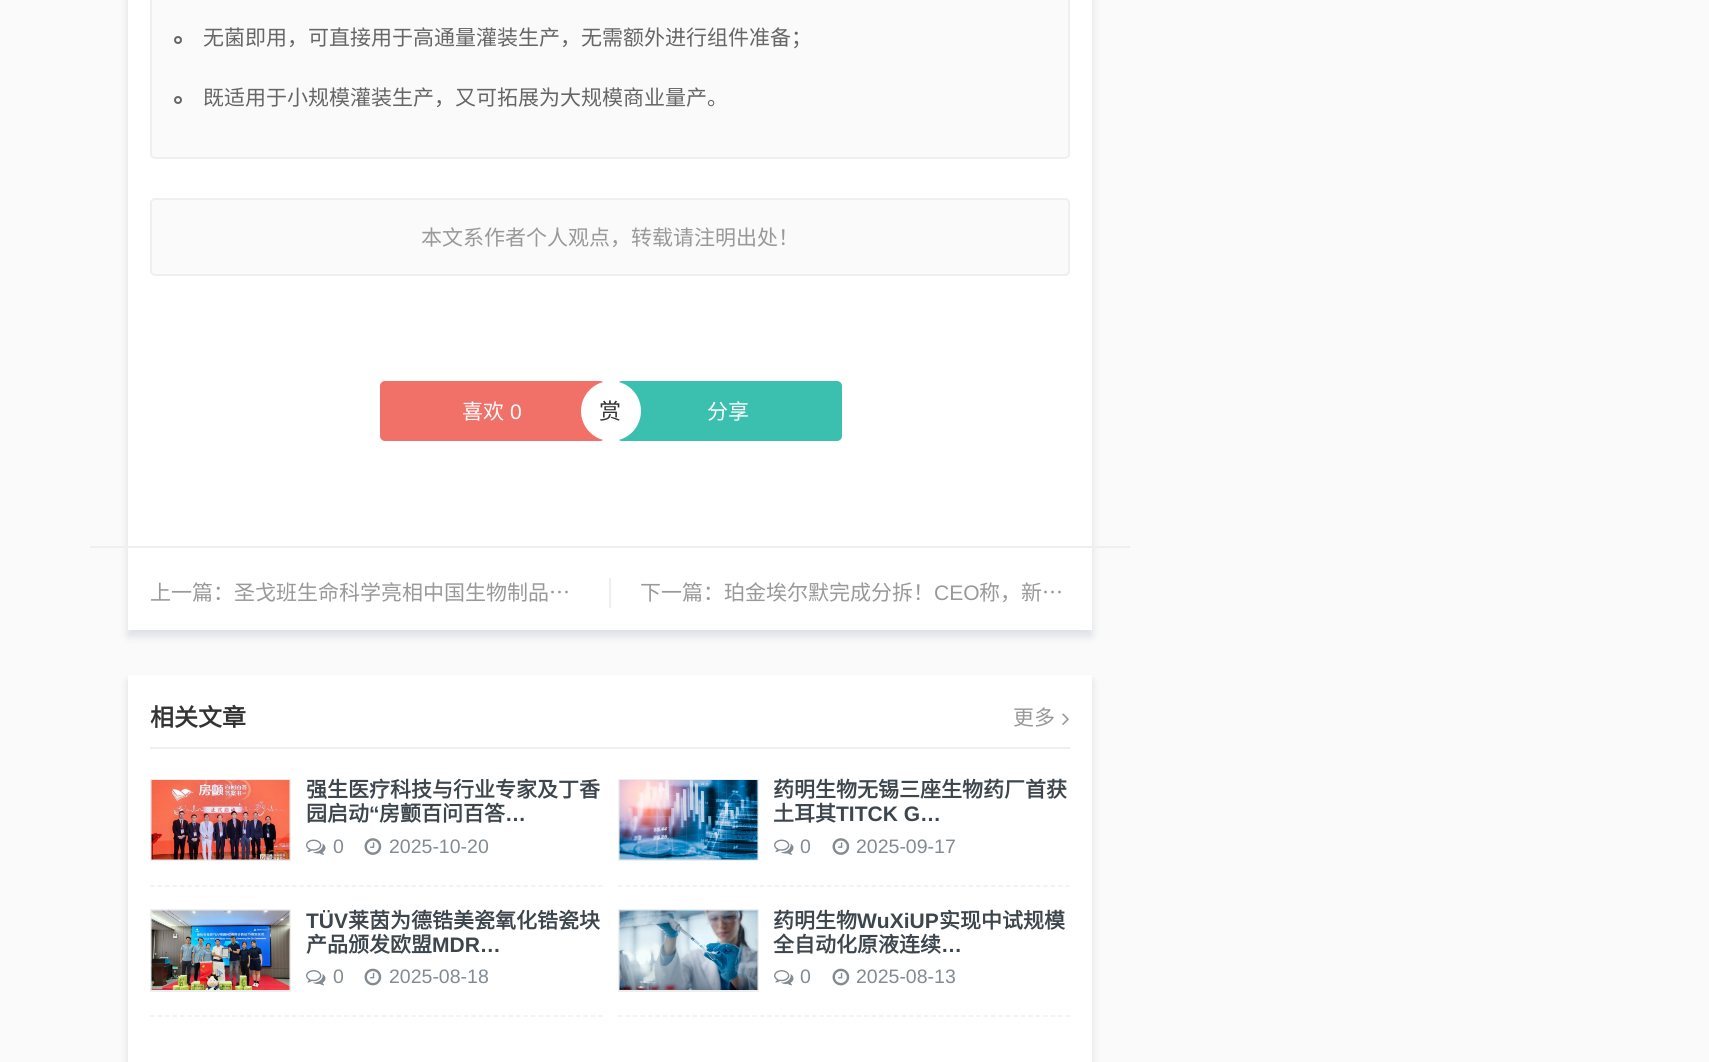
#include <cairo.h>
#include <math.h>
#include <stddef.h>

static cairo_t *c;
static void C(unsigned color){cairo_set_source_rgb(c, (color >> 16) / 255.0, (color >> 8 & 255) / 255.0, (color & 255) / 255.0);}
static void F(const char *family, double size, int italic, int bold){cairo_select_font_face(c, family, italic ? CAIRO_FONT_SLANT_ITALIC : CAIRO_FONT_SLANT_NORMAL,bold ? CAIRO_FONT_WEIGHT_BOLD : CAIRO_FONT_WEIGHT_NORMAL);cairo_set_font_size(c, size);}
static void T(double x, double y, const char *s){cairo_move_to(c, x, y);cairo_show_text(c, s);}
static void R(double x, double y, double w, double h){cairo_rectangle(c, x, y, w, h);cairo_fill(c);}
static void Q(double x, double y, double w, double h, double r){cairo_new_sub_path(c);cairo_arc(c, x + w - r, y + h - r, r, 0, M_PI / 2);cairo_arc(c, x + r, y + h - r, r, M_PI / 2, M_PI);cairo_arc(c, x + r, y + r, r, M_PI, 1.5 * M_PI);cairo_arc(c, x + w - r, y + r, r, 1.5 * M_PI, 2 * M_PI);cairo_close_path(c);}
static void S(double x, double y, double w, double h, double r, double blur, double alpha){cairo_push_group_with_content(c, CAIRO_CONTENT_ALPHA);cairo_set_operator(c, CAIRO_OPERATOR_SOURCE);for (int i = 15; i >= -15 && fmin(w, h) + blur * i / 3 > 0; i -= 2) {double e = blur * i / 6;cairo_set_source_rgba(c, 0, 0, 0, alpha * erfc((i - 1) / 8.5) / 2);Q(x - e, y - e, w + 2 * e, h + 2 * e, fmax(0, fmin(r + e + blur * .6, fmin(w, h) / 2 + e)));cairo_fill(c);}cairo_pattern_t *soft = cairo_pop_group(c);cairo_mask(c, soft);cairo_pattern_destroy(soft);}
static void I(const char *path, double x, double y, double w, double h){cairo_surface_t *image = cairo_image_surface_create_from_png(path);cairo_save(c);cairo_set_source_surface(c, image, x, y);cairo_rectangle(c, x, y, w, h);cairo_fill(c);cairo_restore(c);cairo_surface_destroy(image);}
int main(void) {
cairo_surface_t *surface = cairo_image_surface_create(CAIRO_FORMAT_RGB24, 1709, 1062);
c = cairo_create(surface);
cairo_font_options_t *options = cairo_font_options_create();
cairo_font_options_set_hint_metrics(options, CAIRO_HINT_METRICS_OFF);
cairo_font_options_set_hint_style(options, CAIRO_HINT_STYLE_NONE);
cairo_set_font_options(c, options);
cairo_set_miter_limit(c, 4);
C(0xfafafa);
cairo_paint(c);
C(0x3f4a69);
S(128,-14,964,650,0,4.5,.16);
C(0xffffff);
R(128,0,964,630);
C(0xfafafa);
Q(151,-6,918,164,4);
cairo_fill_preserve(c);
C(0xefefef);
cairo_stroke(c);
cairo_arc(c,178,40,3,0,2 * M_PI);
C(0x666666);
cairo_stroke(c);
F("Noto Sans CJK SC",21,0,0);
T(203,45,"无菌即用，可直接用于高通量灌装生产，无需额外进行组件准备；");
cairo_new_path(c);
cairo_arc(c,178,100,3,0,2 * M_PI);
cairo_stroke(c);
T(203,105,"既适用于小规模灌装生产，又可拓展为大规模商业量产。");
C(0xfafafa);
Q(151,199,918,76,4);
cairo_fill_preserve(c);
C(0xefefef);
cairo_stroke(c);
C(0x999999);
T(421,245,"本文系作者个人观点，转载请注明出处！");
C(0xf17067);
Q(380,381,225,60,5);
cairo_fill(c);
C(0xffffff);
T(462,419,"喜欢");
F("Liberation Sans",21,0,0);
T(510,419,"0");
C(0x3bbfaf);
Q(617,381,225,60,5);
cairo_fill(c);
C(0xffffff);
cairo_arc(c,611,411,30,0,2 * M_PI);
cairo_fill(c);
F("Noto Sans CJK SC",22,0,0);
C(0x333333);
T(599,419,"赏");
F("Noto Sans CJK SC",21,0,0);
C(0xffffff);
T(707,419,"分享");
C(0xefefef);
R(90,546,1040,2);
R(609,578,2,30);
C(0x999999);
T(150,600,"上一篇：圣戈班生命科学亮相中国生物制品…");
T(640,600,"下一篇：珀金埃尔默完成分拆！");
F("Liberation Sans",21,0,0);
T(934,600,"CEO");
F("Noto Sans CJK SC",21,0,0);
T(979,600,"称，新…");
C(0x3f4a69);
S(128,681,964,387,0,4.5,.16);
C(0xffffff);
R(128,675,964,387);
C(0xefefef);
R(150,747,920,2);
F("Noto Sans CJK SC",24,0,1);
C(0x333333);
T(150,726,"相关文章");
F("Noto Sans CJK SC",21,0,0);
C(0x999999);
T(1013,725,"更多");
I("1.png",1062,713,7,12);
cairo_new_path(c);
cairo_move_to(c,150,886);
cairo_line_to(c,603,886);
C(0xefefef);
cairo_set_line_width(c,1.5);
cairo_set_dash(c,(double[]){4.5,2.97},2,0);
cairo_stroke(c);
cairo_rectangle(c,151,780,139,80);
cairo_set_line_width(c,2);
cairo_set_dash(c,NULL,0,0);
cairo_stroke(c);
I("2.png",151,780,139,80);
F("Noto Sans CJK SC",21,0,1);
C(0x3d464d);
T(306,797,"强生医疗科技与行业专家及丁香");
T(306,821,"园启动");
F("Liberation Sans",21,0,1);
T(369,821,"“");
F("Noto Sans CJK SC",21,0,1);
T(379,821,"房颤百问百答");
F("Liberation Sans",21,0,1);
T(505,821,"…");
I("3.png",306,839,20,16);
F("Liberation Sans",19.5,0,0);
C(0x828a92);
T(333,853,"0");
I("4.png",364,838,18,17);
T(389,853,"2025-10-20");
cairo_new_path(c);
cairo_move_to(c,618,886);
cairo_line_to(c,1069.5,886);
C(0xefefef);
cairo_set_line_width(c,1.5);
cairo_set_dash(c,(double[]){4.5,2.96},2,0);
cairo_stroke(c);
cairo_rectangle(c,619,780,139,80);
cairo_set_line_width(c,2);
cairo_set_dash(c,NULL,0,0);
cairo_stroke(c);
I("5.png",619,780,139,80);
F("Noto Sans CJK SC",21,0,1);
C(0x3d464d);
T(773,797,"药明生物无锡三座生物药厂首获");
T(773,821,"土耳其");
F("Liberation Sans",21,0,1);
T(836,821,"TITCK G…");
I("3.png",774,839,20,16);
F("Liberation Sans",19.5,0,0);
C(0x828a92);
T(800,853,"0");
I("4.png",832,838,18,17);
T(856,853,"2025-09-17");
cairo_new_path(c);
cairo_move_to(c,150,1016);
cairo_line_to(c,603,1016);
C(0xefefef);
cairo_set_line_width(c,1.5);
cairo_set_dash(c,(double[]){4.5,2.97},2,0);
cairo_stroke(c);
cairo_rectangle(c,151,910,139,81);
cairo_set_line_width(c,2);
cairo_set_dash(c,NULL,0,0);
cairo_stroke(c);
I("6.png",151,910,139,80);
F("Liberation Sans",21,0,1);
C(0x3d464d);
T(306,928,"TÜV");
F("Noto Sans CJK SC",21,0,1);
T(348,928,"莱茵为德锆美瓷氧化锆瓷块");
T(306,952,"产品颁发欧盟");
F("Liberation Sans",21,0,1);
T(432,952,"MDR…");
I("7.png",306,970,20,16);
F("Liberation Sans",19.5,0,0);
C(0x828a92);
T(333,983,"0");
I("8.png",364,968,18,18);
T(389,983,"2025-08-18");
cairo_new_path(c);
cairo_move_to(c,618,1016);
cairo_line_to(c,1069.5,1016);
C(0xefefef);
cairo_set_line_width(c,1.5);
cairo_set_dash(c,(double[]){4.5,2.96},2,0);
cairo_stroke(c);
cairo_rectangle(c,619,910,139,81);
cairo_set_line_width(c,2);
cairo_set_dash(c,NULL,0,0);
cairo_stroke(c);
I("9.png",619,910,139,80);
F("Noto Sans CJK SC",21,0,1);
C(0x3d464d);
T(773,928,"药明生物");
F("Liberation Sans",21,0,1);
T(857,928,"WuXiUP");
F("Noto Sans CJK SC",21,0,1);
T(939,928,"实现中试规模");
T(773,952,"全自动化原液连续");
F("Liberation Sans",21,0,1);
T(941,952,"…");
I("7.png",774,970,20,16);
F("Liberation Sans",19.5,0,0);
C(0x828a92);
T(800,983,"0");
I("8.png",832,968,18,18);
T(856,983,"2025-08-13");
cairo_surface_write_to_png(surface, "o.png");
cairo_font_options_destroy(options);
cairo_destroy(c);
cairo_surface_destroy(surface);
return 0;
}
